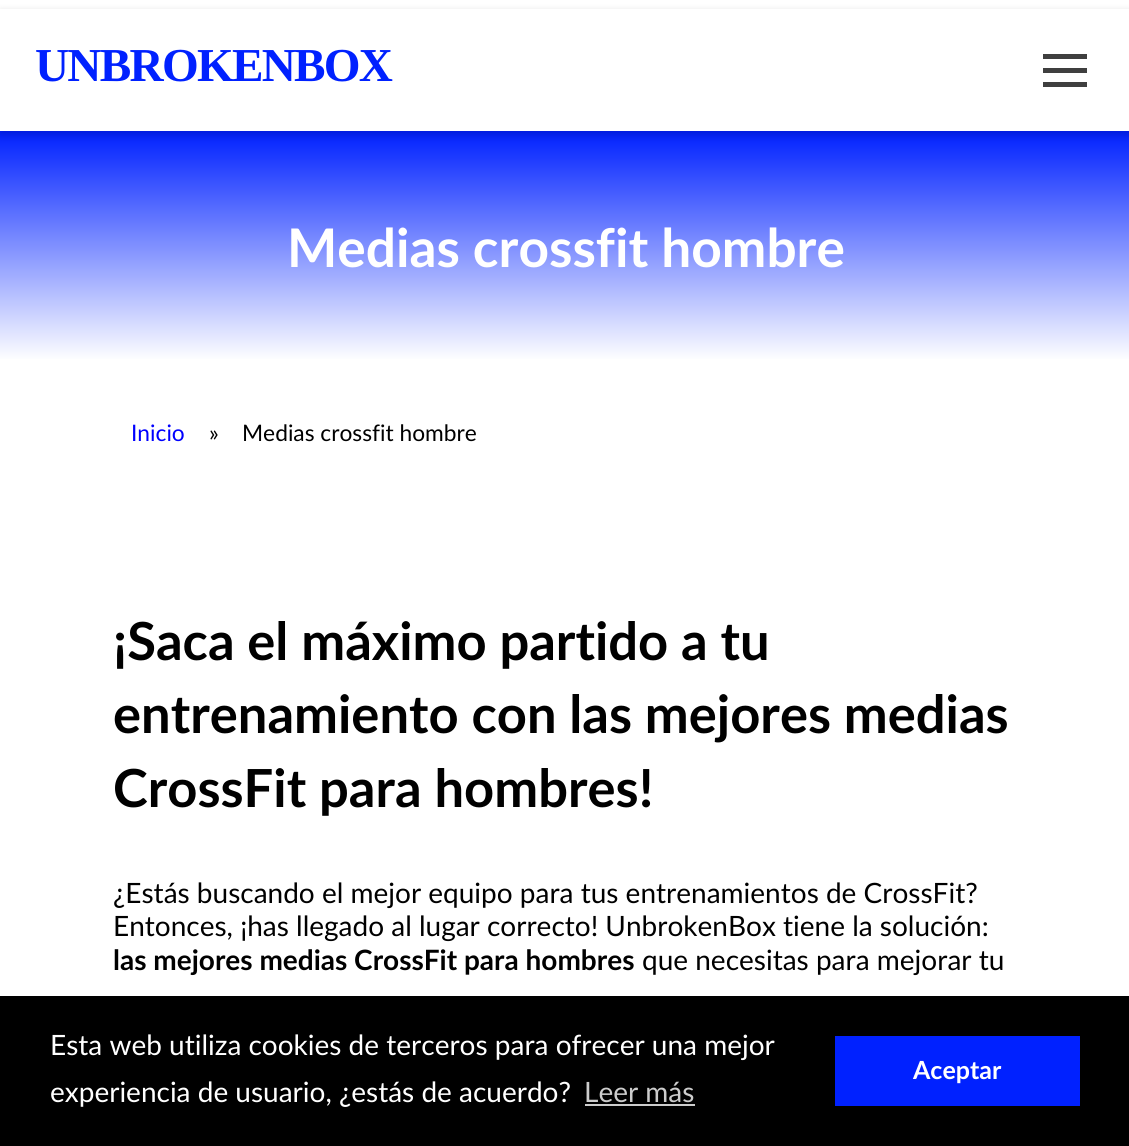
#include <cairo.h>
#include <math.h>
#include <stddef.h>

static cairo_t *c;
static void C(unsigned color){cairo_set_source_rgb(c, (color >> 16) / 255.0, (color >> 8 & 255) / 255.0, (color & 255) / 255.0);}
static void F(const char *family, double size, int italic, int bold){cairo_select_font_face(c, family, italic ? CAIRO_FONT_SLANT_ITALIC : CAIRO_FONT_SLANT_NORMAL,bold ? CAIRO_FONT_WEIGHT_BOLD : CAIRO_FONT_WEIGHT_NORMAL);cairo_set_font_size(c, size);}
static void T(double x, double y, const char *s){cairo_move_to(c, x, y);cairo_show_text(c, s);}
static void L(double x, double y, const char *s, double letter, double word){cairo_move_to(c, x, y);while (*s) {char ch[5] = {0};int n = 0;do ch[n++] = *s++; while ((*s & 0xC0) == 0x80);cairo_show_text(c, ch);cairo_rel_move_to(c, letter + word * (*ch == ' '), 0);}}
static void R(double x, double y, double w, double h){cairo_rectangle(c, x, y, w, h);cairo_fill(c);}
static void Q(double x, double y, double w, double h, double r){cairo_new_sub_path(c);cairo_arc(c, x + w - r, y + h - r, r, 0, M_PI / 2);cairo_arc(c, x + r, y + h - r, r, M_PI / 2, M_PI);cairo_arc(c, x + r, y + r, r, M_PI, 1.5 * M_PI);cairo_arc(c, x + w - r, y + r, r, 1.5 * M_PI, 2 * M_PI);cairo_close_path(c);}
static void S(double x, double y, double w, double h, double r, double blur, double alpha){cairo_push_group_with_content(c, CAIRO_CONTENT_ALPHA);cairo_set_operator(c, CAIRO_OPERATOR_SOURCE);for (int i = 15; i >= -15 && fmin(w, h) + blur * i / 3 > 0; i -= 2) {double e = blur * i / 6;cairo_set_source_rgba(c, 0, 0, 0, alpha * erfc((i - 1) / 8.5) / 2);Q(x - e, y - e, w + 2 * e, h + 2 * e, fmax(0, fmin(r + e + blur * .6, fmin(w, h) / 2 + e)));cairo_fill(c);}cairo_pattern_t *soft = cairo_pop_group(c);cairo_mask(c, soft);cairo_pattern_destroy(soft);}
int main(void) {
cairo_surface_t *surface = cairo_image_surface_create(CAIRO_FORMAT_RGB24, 1129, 1146);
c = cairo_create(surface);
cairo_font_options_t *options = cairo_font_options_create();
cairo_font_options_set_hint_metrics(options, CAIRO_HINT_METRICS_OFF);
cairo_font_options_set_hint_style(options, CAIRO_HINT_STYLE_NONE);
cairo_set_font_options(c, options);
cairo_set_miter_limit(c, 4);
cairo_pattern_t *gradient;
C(0xffffff);
cairo_paint(c);
gradient = cairo_pattern_create_linear(565,131,565,361);
cairo_pattern_add_color_stop_rgba(gradient,0,0,0.129,1,1);
cairo_pattern_add_color_stop_rgba(gradient,1,1,1,1,1);
cairo_set_source(c,gradient);
cairo_pattern_destroy(gradient);
R(0,131,1129,228);
cairo_save(c);
cairo_set_fill_rule(c,CAIRO_FILL_RULE_EVEN_ODD);
cairo_new_path(c);
cairo_move_to(c,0,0);
cairo_line_to(c,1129,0);
cairo_line_to(c,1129,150);
cairo_line_to(c,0,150);
cairo_close_path(c);
cairo_move_to(c,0,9);
cairo_line_to(c,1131,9);
cairo_line_to(c,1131,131);
cairo_line_to(c,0,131);
cairo_close_path(c);
cairo_clip(c);
C(0x000000);
S(0,12,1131,123,0,4.5,.16);
cairo_restore(c);
F("Liberation Serif",47.25,0,1);
C(0x0021ff);
L(35,81,"UNBROKENBOX",-1.75,0);
C(0x3f3f3f);
R(1043,54,44,5);
R(1043,68,44,5);
R(1043,82,44,5);
F("Lato",53.25,0,1);
C(0xffffff);
T(287,267,"Medias crossfit hombre");
F("Lato",22.75,0,0);
C(0x0000ff);
T(131,441,"Inicio");
C(0x000000);
T(209,441,"»");
T(242,441,"Medias crossfit hombre");
F("Lato",52.5,0,1);
T(113,660,"¡Saca el máximo partido a tu");
T(113,733,"entrenamiento con las mejores medias");
T(113,807,"CrossFit para hombres!");
F("Lato",28,0,0);
T(113,903,"¿Estás buscando el mejor equipo para tus entrenamientos de CrossFit?");
T(113,936,"Entonces, ¡has llegado al lugar correcto! UnbrokenBox tiene la solución:");
F("Lato",28,0,1);
T(113,970,"las mejores medias CrossFit para hombres");
F("Lato",28,0,0);
T(642,970,"que necesitas para mejorar tu");
R(0,996,1129,150);
C(0xffffff);
T(50,1055,"Esta web utiliza cookies de terceros para ofrecer una mejor");
T(50,1102,"experiencia de usuario, ¿estás de acuerdo?");
C(0xcccccc);
T(584,1102,"Leer más");
R(585,1104,110,2);
C(0x0021ff);
R(835,1036,245,70);
F("Lato",25,0,1);
C(0xffffff);
T(913,1079,"Aceptar");
cairo_surface_write_to_png(surface, "o.png");
cairo_font_options_destroy(options);
cairo_destroy(c);
cairo_surface_destroy(surface);
return 0;
}
